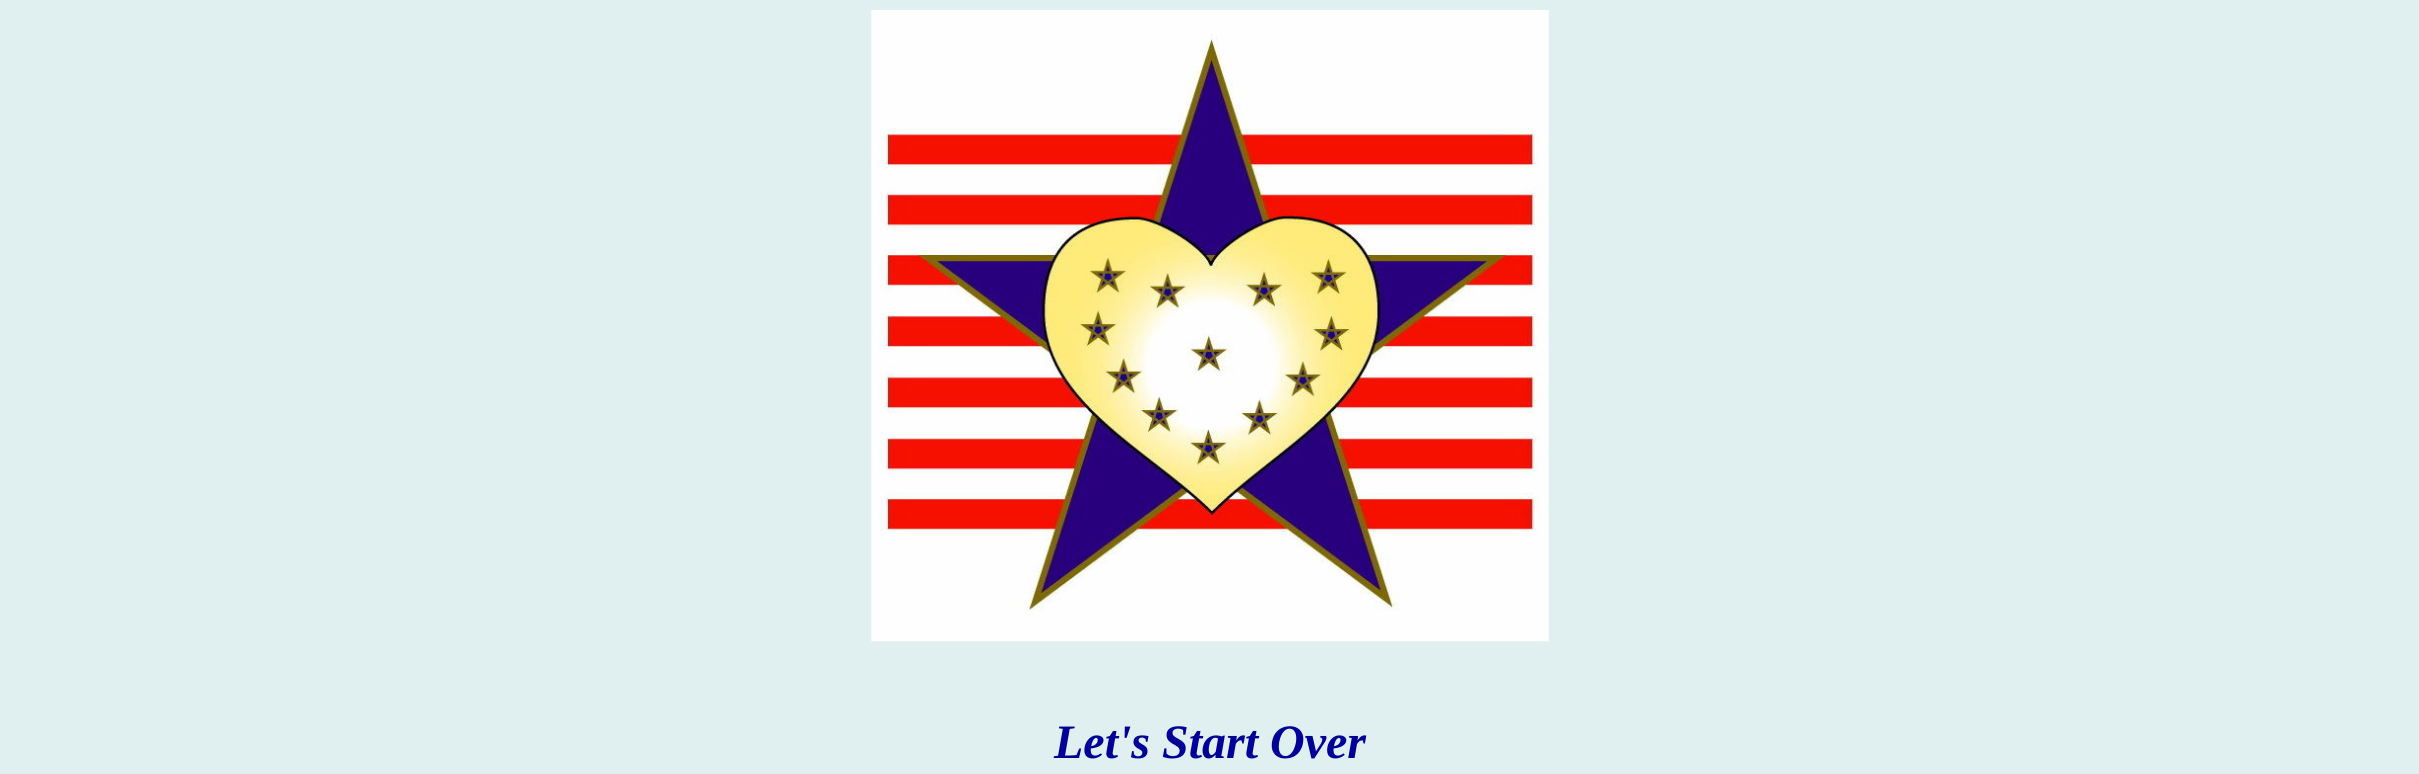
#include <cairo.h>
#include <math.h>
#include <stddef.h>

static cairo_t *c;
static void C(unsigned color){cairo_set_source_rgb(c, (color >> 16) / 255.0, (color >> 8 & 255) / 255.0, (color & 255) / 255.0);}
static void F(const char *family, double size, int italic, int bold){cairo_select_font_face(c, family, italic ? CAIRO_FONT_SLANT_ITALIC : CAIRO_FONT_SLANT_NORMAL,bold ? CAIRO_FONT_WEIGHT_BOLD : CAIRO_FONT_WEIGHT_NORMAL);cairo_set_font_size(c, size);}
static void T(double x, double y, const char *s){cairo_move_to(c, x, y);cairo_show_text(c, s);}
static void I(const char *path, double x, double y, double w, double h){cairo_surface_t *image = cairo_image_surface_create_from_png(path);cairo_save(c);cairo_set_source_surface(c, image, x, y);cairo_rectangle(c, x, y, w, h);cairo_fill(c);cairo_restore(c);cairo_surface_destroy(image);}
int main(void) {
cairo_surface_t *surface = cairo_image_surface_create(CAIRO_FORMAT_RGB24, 2419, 774);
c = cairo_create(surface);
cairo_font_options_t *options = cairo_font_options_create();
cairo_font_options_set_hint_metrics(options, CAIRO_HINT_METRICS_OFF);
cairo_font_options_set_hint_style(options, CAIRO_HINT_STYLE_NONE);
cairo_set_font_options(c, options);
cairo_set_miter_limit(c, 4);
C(0xe0f0f0);
cairo_paint(c);
I("1.png",871,10,678,632);
F("Liberation Serif",48,1,1);
C(0x000099);
T(1054,758,"Let's Start Over");
cairo_surface_write_to_png(surface, "o.png");
cairo_font_options_destroy(options);
cairo_destroy(c);
cairo_surface_destroy(surface);
return 0;
}
